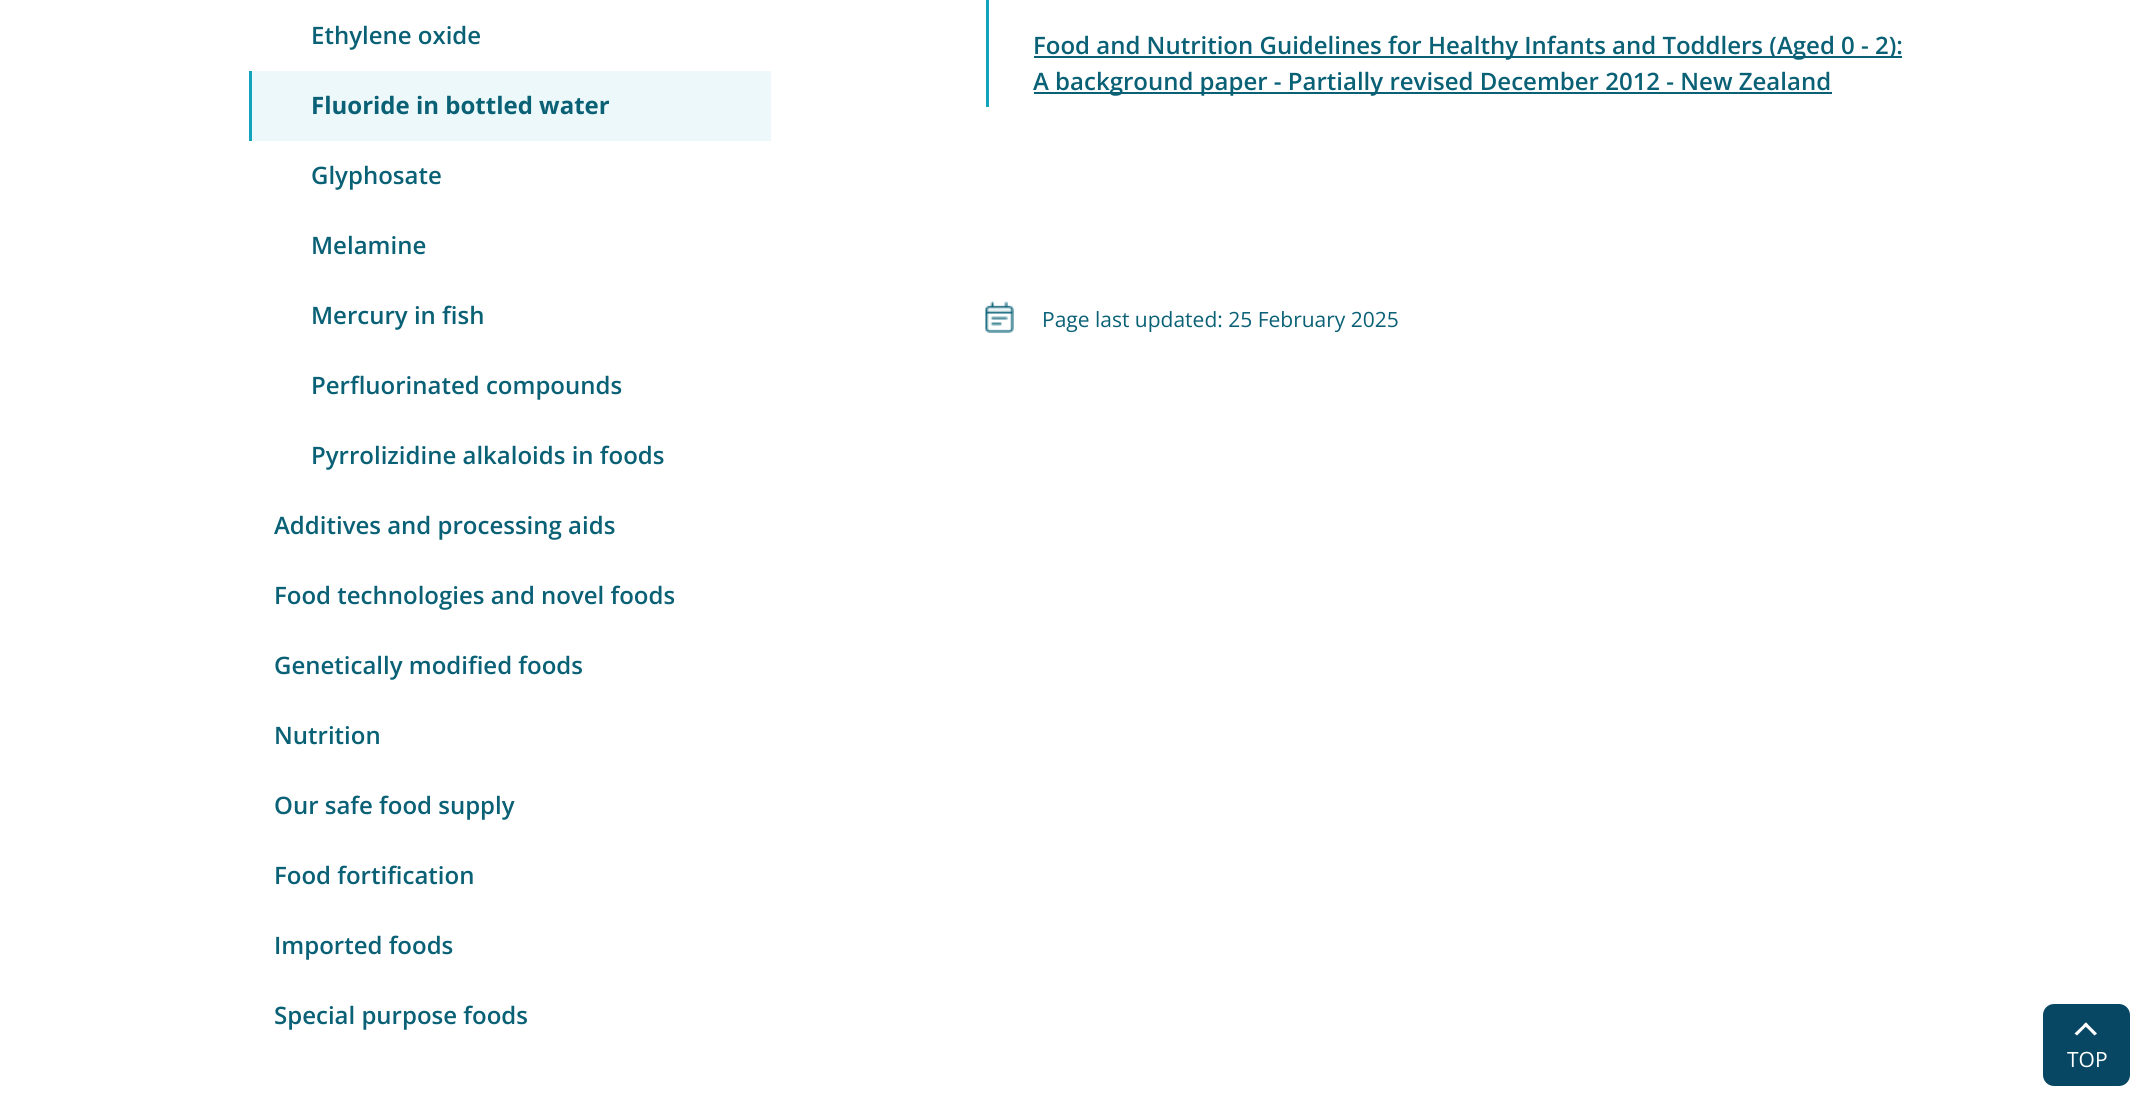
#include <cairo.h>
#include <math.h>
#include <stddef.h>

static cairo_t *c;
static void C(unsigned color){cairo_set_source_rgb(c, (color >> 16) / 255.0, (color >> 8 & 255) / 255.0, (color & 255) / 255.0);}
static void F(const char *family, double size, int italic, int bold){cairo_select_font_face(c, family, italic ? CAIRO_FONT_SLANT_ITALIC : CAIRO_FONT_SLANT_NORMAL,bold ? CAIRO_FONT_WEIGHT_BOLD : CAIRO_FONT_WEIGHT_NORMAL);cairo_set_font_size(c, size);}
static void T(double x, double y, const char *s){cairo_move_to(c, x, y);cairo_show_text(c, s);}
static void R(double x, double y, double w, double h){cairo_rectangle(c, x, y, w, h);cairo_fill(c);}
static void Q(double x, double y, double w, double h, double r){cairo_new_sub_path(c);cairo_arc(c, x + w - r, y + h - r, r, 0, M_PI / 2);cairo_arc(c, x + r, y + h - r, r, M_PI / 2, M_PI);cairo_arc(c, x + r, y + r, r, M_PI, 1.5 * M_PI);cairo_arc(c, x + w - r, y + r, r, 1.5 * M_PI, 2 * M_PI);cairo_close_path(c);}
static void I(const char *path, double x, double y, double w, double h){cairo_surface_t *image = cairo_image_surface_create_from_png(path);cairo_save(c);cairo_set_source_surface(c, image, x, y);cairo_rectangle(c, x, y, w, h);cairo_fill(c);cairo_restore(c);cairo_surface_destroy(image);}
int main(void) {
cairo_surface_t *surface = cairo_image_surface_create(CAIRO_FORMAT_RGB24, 2145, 1100);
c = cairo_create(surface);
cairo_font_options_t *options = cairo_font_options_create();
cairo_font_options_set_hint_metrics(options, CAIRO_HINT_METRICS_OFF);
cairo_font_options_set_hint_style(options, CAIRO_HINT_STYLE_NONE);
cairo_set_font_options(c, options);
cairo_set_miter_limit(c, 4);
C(0xffffff);
cairo_paint(c);
F("Open Sans SemiBold",24,0,0);
C(0x0a6176);
T(311,44,"Ethylene oxide");
C(0xecf8fa);
R(252,71,519,70);
C(0x12a3bd);
R(249,71,3,70);
F("Open Sans",24,0,1);
C(0x0a6176);
T(311,114,"Fluoride in bottled water");
F("Open Sans SemiBold",24,0,0);
T(311,184,"Glyphosate");
T(311,254,"Melamine");
T(311,324,"Mercury in fish");
T(311,394,"Perfluorinated compounds");
T(311,464,"Pyrrolizidine alkaloids in foods");
T(274,534,"Additives and processing aids");
T(274,604,"Food technologies and novel foods");
T(274,674,"Genetically modified foods");
T(274,744,"Nutrition");
T(274,814,"Our safe food supply");
T(274,884,"Food fortification");
T(274,954,"Imported foods");
T(274,1024,"Special purpose foods");
C(0x12a3bd);
R(986,0,3,107);
C(0x0a6176);
R(1034,56,868,2);
T(1033,54,"Food and Nutrition Guidelines for Healthy Infants and Toddlers (Aged 0 - 2):");
R(1034,92,798,2);
T(1033,90,"A background paper - Partially revised December 2012 - New Zealand");
I("1.png",985,301,29,32);
F("Open Sans",21,0,0);
T(1042,327,"Page last updated: 25 February 2025");
C(0x074763);
Q(2044,1005,85,80,10);
cairo_fill_preserve(c);
cairo_stroke(c);
C(0xffffff);
cairo_new_path(c);
cairo_move_to(c,2077,1035.5);
cairo_line_to(c,2074.5,1033.5);
cairo_line_to(c,2086,1022.5);
cairo_line_to(c,2088,1024.5);
cairo_close_path(c);
cairo_fill(c);
cairo_new_path(c);
cairo_move_to(c,2094.5,1035.5);
cairo_line_to(c,2083.5,1024.5);
cairo_line_to(c,2086,1022.5);
cairo_line_to(c,2097,1033.5);
cairo_close_path(c);
cairo_fill(c);
T(2067,1067,"TOP");
cairo_surface_write_to_png(surface, "o.png");
cairo_font_options_destroy(options);
cairo_destroy(c);
cairo_surface_destroy(surface);
return 0;
}
